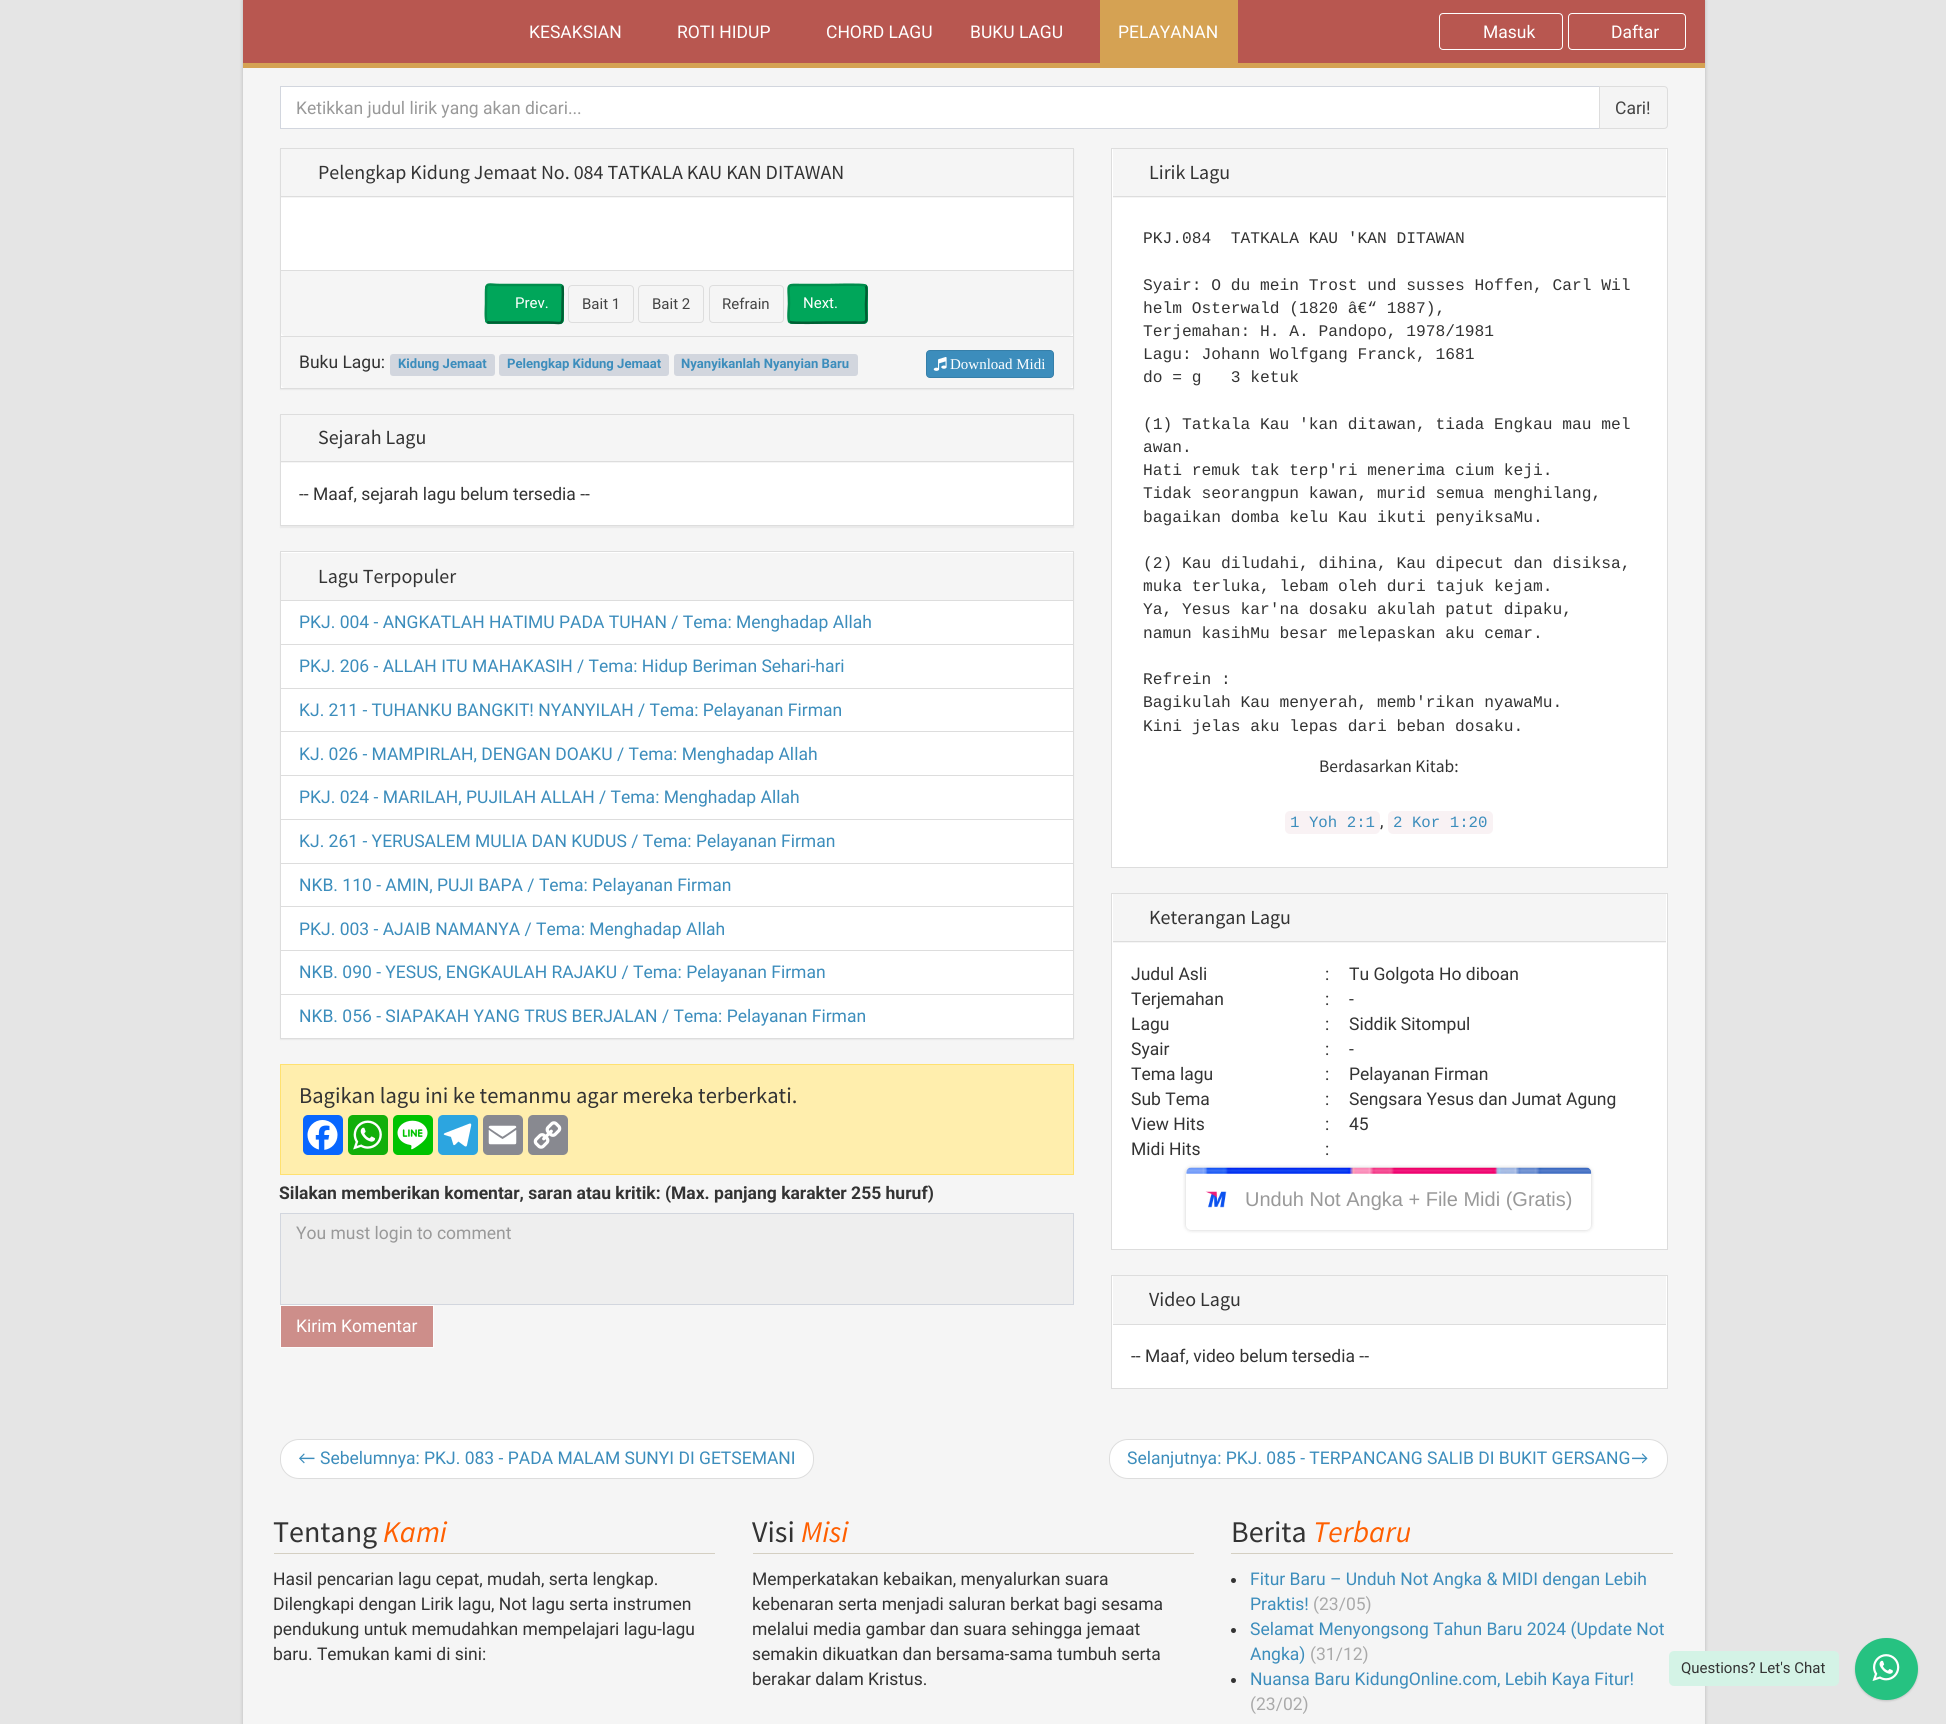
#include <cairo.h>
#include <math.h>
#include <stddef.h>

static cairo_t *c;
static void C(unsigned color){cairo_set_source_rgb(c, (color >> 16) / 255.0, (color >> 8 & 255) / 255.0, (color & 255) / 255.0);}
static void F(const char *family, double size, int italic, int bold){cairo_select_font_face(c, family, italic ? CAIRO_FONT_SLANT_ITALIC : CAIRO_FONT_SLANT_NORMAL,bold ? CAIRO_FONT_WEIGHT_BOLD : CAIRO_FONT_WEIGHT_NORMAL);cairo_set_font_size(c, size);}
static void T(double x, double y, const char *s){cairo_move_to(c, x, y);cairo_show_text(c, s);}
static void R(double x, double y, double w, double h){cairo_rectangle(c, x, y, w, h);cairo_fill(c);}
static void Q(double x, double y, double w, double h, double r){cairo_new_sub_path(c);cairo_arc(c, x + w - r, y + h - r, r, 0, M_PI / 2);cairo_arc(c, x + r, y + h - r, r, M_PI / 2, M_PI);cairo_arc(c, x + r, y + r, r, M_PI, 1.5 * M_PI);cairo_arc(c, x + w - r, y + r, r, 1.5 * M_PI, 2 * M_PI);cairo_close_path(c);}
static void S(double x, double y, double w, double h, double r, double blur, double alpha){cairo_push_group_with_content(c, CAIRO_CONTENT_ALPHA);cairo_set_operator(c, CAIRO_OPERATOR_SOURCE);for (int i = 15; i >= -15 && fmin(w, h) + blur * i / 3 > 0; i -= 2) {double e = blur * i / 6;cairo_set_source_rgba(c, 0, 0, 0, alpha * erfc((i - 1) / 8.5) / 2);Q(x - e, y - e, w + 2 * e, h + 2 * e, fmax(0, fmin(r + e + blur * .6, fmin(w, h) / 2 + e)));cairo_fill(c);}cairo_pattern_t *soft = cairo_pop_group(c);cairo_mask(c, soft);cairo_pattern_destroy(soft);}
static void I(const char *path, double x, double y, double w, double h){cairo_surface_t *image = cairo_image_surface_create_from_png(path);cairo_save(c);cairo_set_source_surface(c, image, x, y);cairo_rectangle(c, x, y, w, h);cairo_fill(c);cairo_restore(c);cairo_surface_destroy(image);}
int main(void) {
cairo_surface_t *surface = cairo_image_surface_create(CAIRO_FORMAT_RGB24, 1946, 1724);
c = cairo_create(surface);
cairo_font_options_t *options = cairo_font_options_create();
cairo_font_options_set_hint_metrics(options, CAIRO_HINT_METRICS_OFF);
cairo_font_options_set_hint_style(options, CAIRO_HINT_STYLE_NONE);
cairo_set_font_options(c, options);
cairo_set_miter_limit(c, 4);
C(0xe5e5e5);
cairo_paint(c);
C(0x000000);
S(243,0,1462,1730,0,2,.2);
C(0xb85750);
R(243,0,1462,63);
C(0xd5a253);
R(243,63,1462,5);
F("Roboto",17.5,0,0);
C(0xffffff);
T(529,38,"KESAKSIAN");
T(677,38,"ROTI HIDUP");
T(826,38,"CHORD LAGU");
T(970,38,"BUKU LAGU");
C(0xd5a253);
R(1100,0,138,63);
C(0xffffff);
T(1118,38,"PELAYANAN");
Q(1439.5,13.5,123,36,3.5);
cairo_set_line_width(c,1);
cairo_stroke(c);
T(1483,38,"Masuk");
Q(1568.5,13.5,117,36,3.5);
cairo_stroke(c);
T(1611,38,"Daftar");
C(0xf5f5f5);
R(243,68,1462,1656);
C(0xffffff);
cairo_rectangle(c,280.5,86.5,1319,42);
cairo_fill_preserve(c);
C(0xd2d6de);
cairo_stroke(c);
C(0x999999);
T(296,114,"Ketikkan judul lirik yang akan dicari...");
C(0xf4f4f4);
cairo_new_path(c);
cairo_move_to(c,1599.5,86.5);
cairo_line_to(c,1664,86.5);
cairo_curve_to(c,1666,86.5,1667.5,88,1667.5,90);
cairo_line_to(c,1667.5,125);
cairo_curve_to(c,1667.5,127,1666,128.5,1664,128.5);
cairo_line_to(c,1599.5,128.5);
cairo_close_path(c);
cairo_fill_preserve(c);
C(0xdddddd);
cairo_stroke(c);
C(0x444444);
T(1615,114,"Cari!");
C(0x000000);
S(280,149,794,241,0,.5,.05);
C(0xffffff);
R(281,198,792,190);
cairo_rectangle(c,280.5,148.5,793,240);
C(0xdddddd);
cairo_stroke(c);
C(0xf5f5f5);
R(281,149,792,49);
C(0xdddddd);
R(281,196,792,1);
F("Source Sans Pro",20,0,0);
C(0x333333);
T(318,179,"Pelengkap Kidung Jemaat No. 084 TATKALA KAU KAN DITAWAN");
C(0xf5f5f5);
cairo_new_path(c);
cairo_move_to(c,281,270);
cairo_line_to(c,1073,270);
cairo_line_to(c,1073,332);
cairo_curve_to(c,1073,334,1071,336,1069,336);
cairo_line_to(c,285,336);
cairo_curve_to(c,283,336,281,334,281,332);
cairo_close_path(c);
cairo_fill(c);
C(0xdddddd);
R(281,270,792,1);
C(0x00a65a);
Q(485,284,79,40,4);
cairo_fill(c);
cairo_new_path(c);
cairo_move_to(c,562,285.5);
cairo_curve_to(c,563.5,287.5,562.5,301,562.5,304);
cairo_line_to(c,562.5,314.5);
cairo_curve_to(c,562.5,326,561.5,322.5,548,322.5);
cairo_line_to(c,489,322.5);
cairo_line_to(c,487,322);
C(0x005e33);
cairo_set_line_width(c,2.5);
cairo_stroke(c);
cairo_new_path(c);
cairo_move_to(c,487,322);
cairo_curve_to(c,485,320,486,306.5,486,304);
cairo_line_to(c,486,293);
cairo_curve_to(c,486,281.5,487.5,285,500.5,285);
cairo_line_to(c,560,285);
cairo_line_to(c,562,285.5);
C(0x008d4c);
cairo_stroke(c);
F("Roboto",15,0,0);
C(0xffffff);
T(515,308,"Prev.");
Q(568.5,285.5,65,37,3.5);
C(0xdddddd);
cairo_set_line_width(c,1);
cairo_stroke(c);
C(0x444444);
T(582,309,"Bait 1");
Q(638.5,285.5,65,37,3.5);
C(0xdddddd);
cairo_stroke(c);
C(0x444444);
T(652,309,"Bait 2");
Q(709.5,285.5,74,37,3.5);
C(0xdddddd);
cairo_stroke(c);
C(0x444444);
T(722,309,"Refrain");
C(0x00a65a);
Q(788,284,80,40,4);
cairo_fill(c);
cairo_new_path(c);
cairo_move_to(c,865.5,285.5);
cairo_curve_to(c,867.5,287.5,866,301,866,304);
cairo_curve_to(c,866,325,870.5,322.5,851.5,322.5);
cairo_line_to(c,827.5,322.5);
cairo_curve_to(c,823,322.5,792,323.5,790,322);
cairo_line_to(c,789.5,322);
C(0x005e33);
cairo_set_line_width(c,2.5);
cairo_stroke(c);
cairo_new_path(c);
cairo_move_to(c,789.5,322);
cairo_curve_to(c,787.5,320,789,306.5,789,304);
cairo_curve_to(c,789,282.5,784.5,285,803.5,285);
cairo_line_to(c,827.5,285);
cairo_curve_to(c,832,285,863,284,865,285.5);
cairo_line_to(c,865.5,285.5);
C(0x008d4c);
cairo_stroke(c);
C(0xffffff);
T(803,308,"Next.");
C(0xf5f5f5);
cairo_new_path(c);
cairo_move_to(c,281,336);
cairo_line_to(c,1073,336);
cairo_line_to(c,1073,384);
cairo_curve_to(c,1073,386,1071,388,1069,388);
cairo_line_to(c,285,388);
cairo_curve_to(c,283,388,281,386,281,384);
cairo_close_path(c);
cairo_fill(c);
C(0xdddddd);
R(281,336,792,1);
F("Roboto",17.5,0,0);
C(0x333333);
T(299,368,"Buku Lagu:");
C(0xd2d6de);
Q(390,354,105,22,3);
cairo_fill(c);
F("Roboto",13.1,0,1);
C(0x3c8dbc);
T(398,368,"Kidung Jemaat");
C(0xd2d6de);
Q(499,354,170,22,3);
cairo_fill(c);
C(0x3c8dbc);
T(507,368,"Pelengkap Kidung Jemaat");
C(0xd2d6de);
Q(674,354,184,22,3);
cairo_fill(c);
C(0x3c8dbc);
T(681,368,"Nyanyikanlah Nyanyian Baru");
Q(926.5,350.5,127,27,3.5);
cairo_fill_preserve(c);
C(0x367fa9);
cairo_set_line_width(c,1);
cairo_stroke(c);
I("1.png",933,357,14,14);
F("Liberation Serif",15,0,0);
C(0xffffff);
T(950,369,"Download Midi");
C(0x000000);
S(280,415,794,113,0,.5,.05);
C(0xffffff);
R(281,463,792,62);
cairo_rectangle(c,280.5,414.5,793,111);
C(0xdddddd);
cairo_stroke(c);
C(0xf5f5f5);
R(281,415,792,48);
C(0xdddddd);
R(281,461,792,1);
F("Source Sans Pro",20,0,0);
C(0x333333);
T(318,444,"Sejarah Lagu");
F("Roboto",17.5,0,0);
T(299,500,"-- Maaf, sejarah lagu belum tersedia --");
C(0x000000);
S(280,553,794,487,0,.5,.05);
C(0xffffff);
cairo_rectangle(c,280.5,551.5,793,487);
cairo_fill_preserve(c);
C(0xdddddd);
cairo_stroke(c);
C(0xf5f5f5);
R(281,553,792,47);
C(0xdddddd);
R(281,600,792,1);
F("Source Sans Pro",20,0,0);
C(0x333333);
T(318,583,"Lagu Terpopuler");
C(0xdddddd);
R(281,644,792,1);
F("Roboto",17.5,0,0);
C(0x3c8dbc);
T(299,628,"PKJ. 004 - ANGKATLAH HATIMU PADA TUHAN / Tema: Menghadap Allah");
C(0xdddddd);
R(281,688,792,1);
C(0x3c8dbc);
T(299,672,"PKJ. 206 - ALLAH ITU MAHAKASIH / Tema: Hidup Beriman Sehari-hari");
C(0xdddddd);
R(281,731,792,1);
C(0x3c8dbc);
T(299,716,"KJ. 211 - TUHANKU BANGKIT! NYANYILAH / Tema: Pelayanan Firman");
C(0xdddddd);
R(281,775,792,1);
C(0x3c8dbc);
T(299,760,"KJ. 026 - MAMPIRLAH, DENGAN DOAKU / Tema: Menghadap Allah");
C(0xdddddd);
R(281,819,792,1);
C(0x3c8dbc);
T(299,803,"PKJ. 024 - MARILAH, PUJILAH ALLAH / Tema: Menghadap Allah");
C(0xdddddd);
R(281,863,792,1);
C(0x3c8dbc);
T(299,847,"KJ. 261 - YERUSALEM MULIA DAN KUDUS / Tema: Pelayanan Firman");
C(0xdddddd);
R(281,906,792,1);
C(0x3c8dbc);
T(299,891,"NKB. 110 - AMIN, PUJI BAPA / Tema: Pelayanan Firman");
C(0xdddddd);
R(281,950,792,1);
C(0x3c8dbc);
T(299,935,"PKJ. 003 - AJAIB NAMANYA / Tema: Menghadap Allah");
T(299,978,"NKB. 090 - YESUS, ENGKAULAH RAJAKU / Tema: Pelayanan Firman");
C(0xdddddd);
R(281,994,792,1);
C(0x3c8dbc);
T(299,1022,"NKB. 056 - SIAPAKAH YANG TRUS BERJALAN / Tema: Pelayanan Firman");
C(0xffeead);
cairo_rectangle(c,280.5,1064.5,793,110);
cairo_fill_preserve(c);
C(0xffe170);
cairo_stroke(c);
F("Source Sans Pro",22.5,0,0);
C(0x333333);
T(299,1103,"Bagikan lagu ini ke temanmu agar mereka terberkati.");
C(0x0866ff);
Q(303,1115,40,40,5);
cairo_fill(c);
I("2.png",307,1120,31,30);
C(0x12af0a);
Q(348,1115,40,40,5);
cairo_fill(c);
I("3.png",353,1120,29,30);
C(0x00c300);
Q(393,1115,40,40,5);
cairo_fill(c);
I("4.png",397,1120,31,30);
C(0x2ca5e0);
Q(438,1115,40,40,5);
cairo_fill(c);
I("5.png",443,1123,29,24);
C(0x888990);
Q(483,1115,40,40,5);
cairo_fill(c);
I("6.png",488,1125,29,20);
Q(528,1115,40,40,5);
cairo_fill(c);
I("7.png",533,1121,29,28);
F("Roboto",17.5,0,1);
C(0x333333);
T(279,1199,"Silakan memberikan komentar, saran atau kritik: (Max. panjang karakter 255 huruf)");
C(0xeeeeee);
cairo_rectangle(c,280.5,1213.5,793,91);
cairo_fill_preserve(c);
C(0xd2d6de);
cairo_stroke(c);
F("Roboto",17.5,0,0);
C(0x999999);
T(296,1239,"You must login to comment");
C(0xcd8e8a);
cairo_rectangle(c,280.5,1305.5,153,42);
cairo_fill_preserve(c);
C(0xfcfcfc);
cairo_stroke(c);
C(0xffffff);
T(296,1332,"Kirim Komentar");
cairo_rectangle(c,1111.5,148.5,556,719);
cairo_fill_preserve(c);
C(0xdddddd);
cairo_stroke(c);
C(0xf5f5f5);
R(1113,149,553,49);
C(0xdddddd);
R(1113,196,553,1);
F("Source Sans Pro",20,0,0);
C(0x333333);
T(1149,179,"Lirik Lagu");
F("Liberation Mono",16.25,0,0);
T(1143,243,"PKJ.084  TATKALA KAU 'KAN DITAWAN");
T(1143,290,"Syair: O du mein Trost und susses Hoffen, Carl Wil");
T(1143,313,"helm Osterwald (1820 â€“ 1887),");
T(1143,336,"Terjemahan: H. A. Pandopo, 1978/1981");
T(1143,359,"Lagu: Johann Wolfgang Franck, 1681");
T(1143,382,"do = g   3 ketuk");
T(1143,429,"(1) Tatkala Kau 'kan ditawan, tiada Engkau mau mel");
T(1143,452,"awan.");
T(1143,475,"Hati remuk tak terp'ri menerima cium keji.");
T(1143,498,"Tidak seorangpun kawan, murid semua menghilang,");
T(1143,522,"bagaikan domba kelu Kau ikuti penyiksaMu.");
T(1143,568,"(2) Kau diludahi, dihina, Kau dipecut dan disiksa,");
T(1143,591,"muka terluka, lebam oleh duri tajuk kejam.");
T(1143,614,"Ya, Yesus kar'na dosaku akulah patut dipaku,");
T(1143,638,"namun kasihMu besar melepaskan aku cemar.");
T(1143,684,"Refrein :");
T(1143,707,"Bagikulah Kau menyerah, memb'rikan nyawaMu.");
T(1143,731,"Kini jelas aku lepas dari beban dosaku.");
F("Source Sans Pro",17.5,0,0);
T(1319,772,"Berdasarkan Kitab:");
C(0xf9f2f4);
Q(1285,811,95,23,5);
cairo_fill(c);
F("Liberation Mono",15.75,0,0);
C(0x3c8dbc);
T(1290,827,"1 Yoh 2:1");
F("Roboto",17.5,0,0);
C(0x333333);
T(1380,827,",");
C(0xf9f2f4);
Q(1388,811,105,23,5);
cairo_fill(c);
F("Liberation Mono",15.75,0,0);
C(0x3c8dbc);
T(1393,827,"2 Kor 1:20");
C(0xffffff);
cairo_rectangle(c,1111.5,893.5,556,356);
cairo_fill_preserve(c);
C(0xdddddd);
cairo_stroke(c);
C(0xf5f5f5);
R(1113,894,553,49);
C(0xdddddd);
R(1113,941,553,1);
F("Source Sans Pro",20,0,0);
C(0x333333);
T(1149,924,"Keterangan Lagu");
F("Roboto",17.5,0,0);
T(1131,980,"Judul Asli");
T(1325,980,":");
T(1349,980,"Tu Golgota Ho diboan");
T(1131,1005,"Terjemahan");
T(1325,1005,":");
T(1349,1005,"-");
T(1131,1030,"Lagu");
T(1325,1030,":");
T(1349,1030,"Siddik Sitompul");
T(1131,1055,"Syair");
T(1325,1055,":");
T(1349,1055,"-");
T(1131,1080,"Tema lagu");
T(1325,1080,":");
T(1349,1080,"Pelayanan Firman");
T(1131,1105,"Sub Tema");
T(1325,1105,":");
T(1349,1105,"Sengsara Yesus dan Jumat Agung");
T(1131,1130,"View Hits");
T(1325,1130,":");
T(1349,1130,"45");
T(1131,1155,"Midi Hits");
T(1325,1155,":");
C(0x000000);
S(1186,1168,405,62,5,2,.2);
C(0xffffff);
Q(1186,1168,405,62,5);
cairo_fill(c);
I("8.png",1186,1167,406,7);
I("9.png",1205,1191,22,17);
F("Liberation Sans",20,0,0);
C(0x999999);
T(1245,1206,"Unduh Not Angka + File Midi (Gratis)");
C(0xffffff);
cairo_rectangle(c,1111.5,1275.5,556,113);
cairo_fill_preserve(c);
C(0xdddddd);
cairo_stroke(c);
C(0xf5f5f5);
R(1113,1276,553,48);
C(0xdddddd);
R(1113,1324,553,1);
F("Source Sans Pro",20,0,0);
C(0x333333);
T(1149,1306,"Video Lagu");
F("Roboto",17.5,0,0);
T(1131,1362,"-- Maaf, video belum tersedia --");
C(0xffffff);
Q(280.5,1439.5,533,39,18.5);
cairo_fill_preserve(c);
C(0xdddddd);
cairo_stroke(c);
F("Lato",17.5,0,0);
C(0x3c8dbc);
T(298,1464,"←");
F("Roboto",17.5,0,0);
T(320,1464,"Sebelumnya: PKJ. 083 - PADA MALAM SUNYI DI GETSEMANI");
C(0xffffff);
Q(1109.5,1439.5,558,39,18.5);
cairo_fill_preserve(c);
C(0xdddddd);
cairo_stroke(c);
C(0x3c8dbc);
T(1127,1464,"Selanjutnya: PKJ. 085 - TERPANCANG SALIB DI BUKIT GERSANG");
F("Lato",17.5,0,0);
T(1631,1464,"→");
C(0xd4cfc2);
R(274,1553,441,1);
F("Source Sans Pro",30,0,0);
C(0x333333);
T(273,1542,"Tentang");
F("Source Sans Pro",30,1,0);
C(0xff5f00);
T(383,1542,"Kami");
F("Roboto",17.5,0,0);
C(0x333333);
T(273,1585,"Hasil pencarian lagu cepat, mudah, serta lengkap.");
T(273,1610,"Dilengkapi dengan Lirik lagu, Not lagu serta instrumen");
T(273,1635,"pendukung untuk memudahkan mempelajari lagu-lagu");
T(273,1660,"baru. Temukan kami di sini:");
C(0xd4cfc2);
R(753,1553,441,1);
F("Source Sans Pro",30,0,0);
C(0x333333);
T(752,1542,"Visi");
F("Source Sans Pro",30,1,0);
C(0xff5f00);
T(801,1542,"Misi");
F("Roboto",17.5,0,0);
C(0x333333);
T(752,1585,"Memperkatakan kebaikan, menyalurkan suara");
T(752,1610,"kebenaran serta menjadi saluran berkat bagi sesama");
T(752,1635,"melalui media gambar dan suara sehingga jemaat");
T(752,1660,"semakin dikuatkan dan bersama-sama tumbuh serta");
T(752,1685,"berakar dalam Kristus.");
C(0xd4cfc2);
R(1231,1553,442,1);
F("Source Sans Pro",30,0,0);
C(0x333333);
T(1231,1542,"Berita");
F("Source Sans Pro",30,1,0);
C(0xff5f00);
T(1313,1542,"Terbaru");
C(0x333333);
cairo_new_path(c);
cairo_arc(c,1233.5,1580.5,2.5,0,2 * M_PI);
cairo_fill(c);
F("Roboto",17.5,0,0);
C(0x3c8dbc);
T(1250,1585,"Fitur Baru – Unduh Not Angka & MIDI dengan Lebih");
T(1250,1610,"Praktis!");
C(0xaaaaaa);
T(1313,1610,"(23/05)");
C(0x333333);
cairo_new_path(c);
cairo_arc(c,1233.5,1630.5,2.5,0,2 * M_PI);
cairo_fill(c);
C(0x3c8dbc);
T(1250,1635,"Selamat Menyongsong Tahun Baru 2024 (Update Not");
T(1250,1660,"Angka)");
C(0xaaaaaa);
T(1310,1660,"(31/12)");
C(0x333333);
cairo_new_path(c);
cairo_arc(c,1233.5,1680.5,2.5,0,2 * M_PI);
cairo_fill(c);
C(0x3c8dbc);
T(1250,1685,"Nuansa Baru KidungOnline.com, Lebih Kaya Fitur!");
C(0xaaaaaa);
T(1250,1710,"(23/02)");
C(0xd4f3e6);
Q(1669,1651,170,35,5);
cairo_fill(c);
F("Roboto",15,0,0);
C(0x333333);
T(1681,1673,"Questions? Let's Chat");
C(0x000000);
S(1855,1639,63,62,31,1,.15);
C(0x26c281);
Q(1855,1638,63,62,31);
cairo_fill(c);
I("10.png",1872,1654,28,27);
cairo_surface_write_to_png(surface, "o.png");
cairo_font_options_destroy(options);
cairo_destroy(c);
cairo_surface_destroy(surface);
return 0;
}
